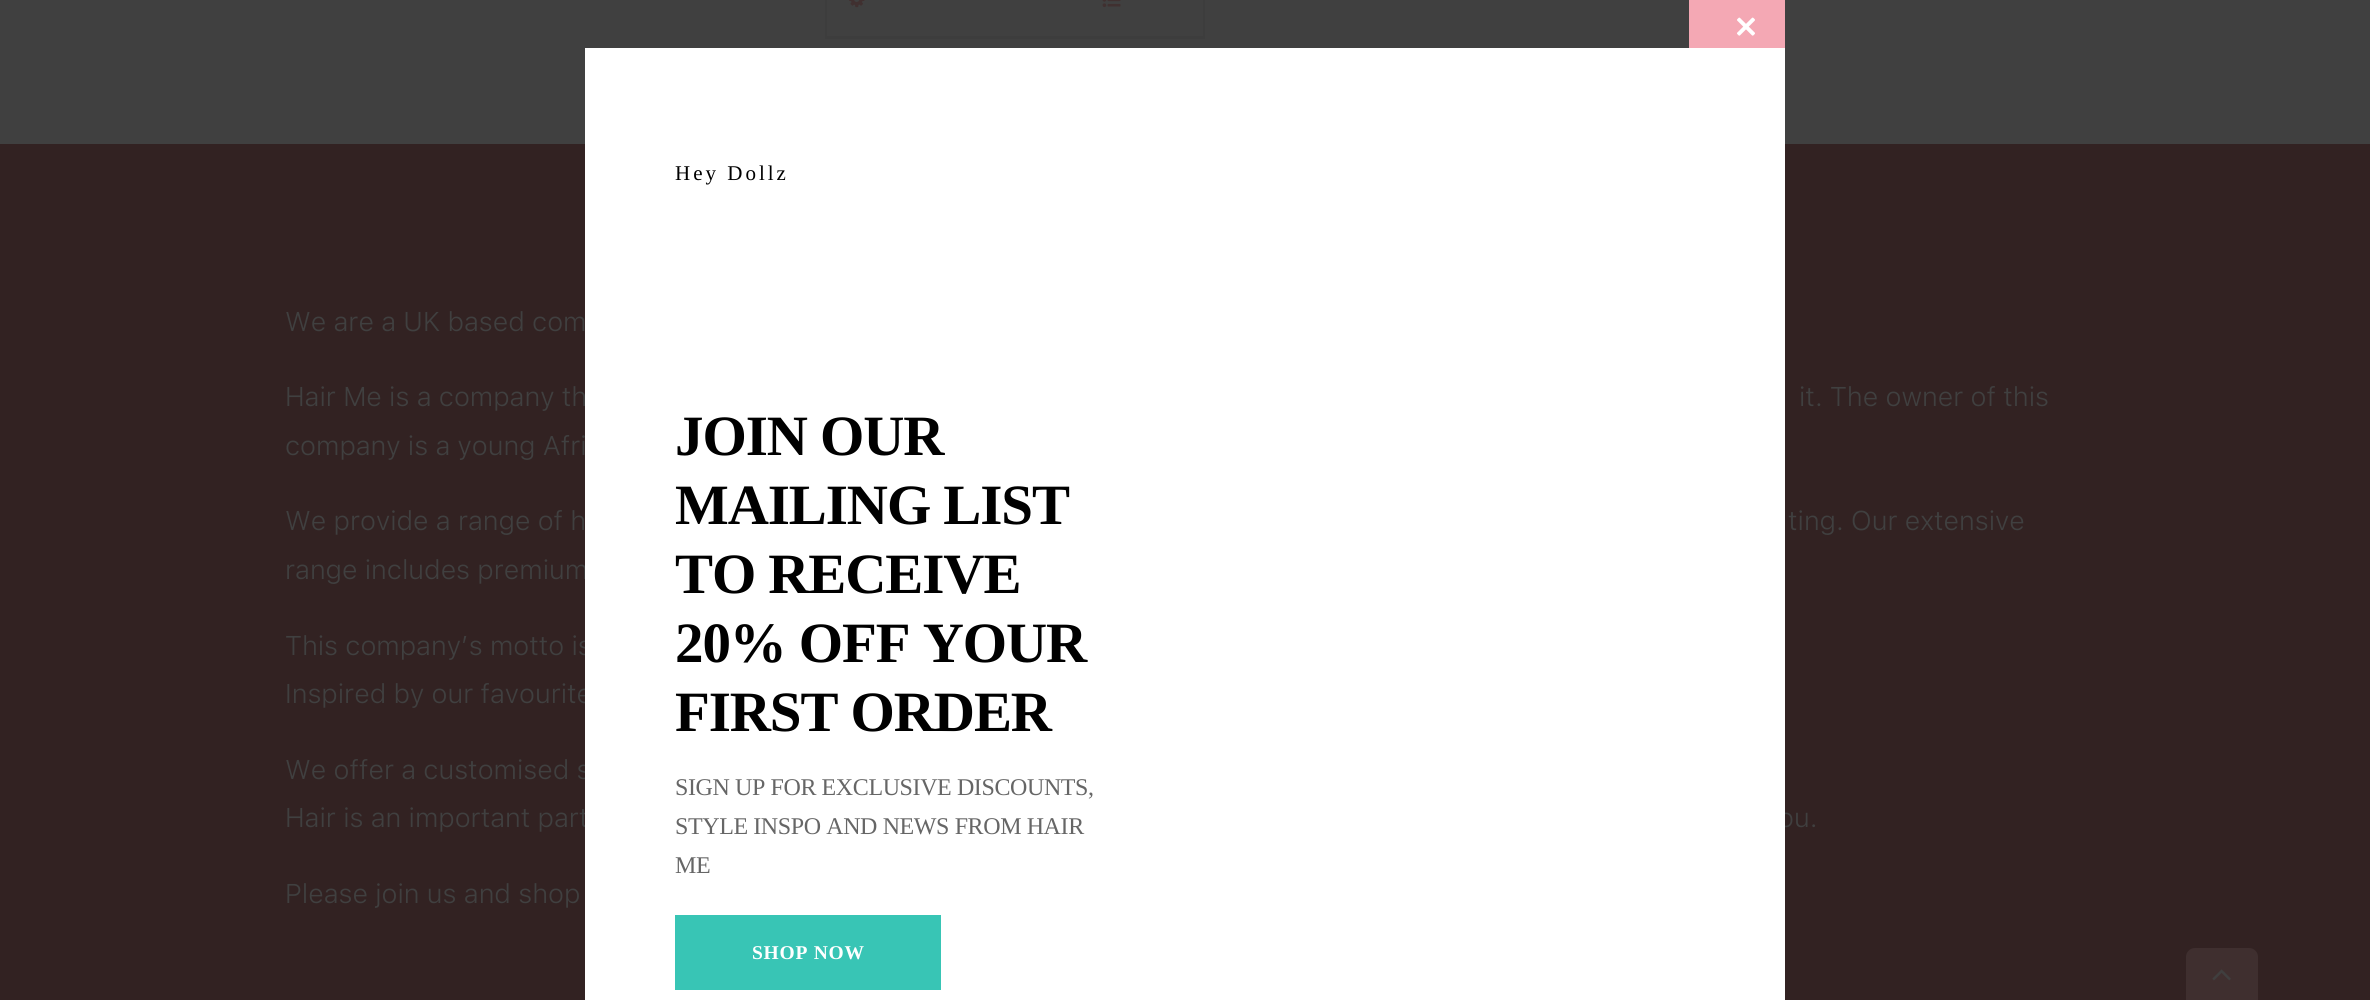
#include <cairo.h>
#include <math.h>
#include <stddef.h>

static cairo_t *c;
static void C(unsigned color){cairo_set_source_rgb(c, (color >> 16) / 255.0, (color >> 8 & 255) / 255.0, (color & 255) / 255.0);}
static void F(const char *family, double size, int italic, int bold){cairo_select_font_face(c, family, italic ? CAIRO_FONT_SLANT_ITALIC : CAIRO_FONT_SLANT_NORMAL,bold ? CAIRO_FONT_WEIGHT_BOLD : CAIRO_FONT_WEIGHT_NORMAL);cairo_set_font_size(c, size);}
static void T(double x, double y, const char *s){cairo_move_to(c, x, y);cairo_show_text(c, s);}
static void L(double x, double y, const char *s, double letter, double word){cairo_move_to(c, x, y);while (*s) {char ch[5] = {0};int n = 0;do ch[n++] = *s++; while ((*s & 0xC0) == 0x80);cairo_show_text(c, ch);cairo_rel_move_to(c, letter + word * (*ch == ' '), 0);}}
static void R(double x, double y, double w, double h){cairo_rectangle(c, x, y, w, h);cairo_fill(c);}
static void I(const char *path, double x, double y, double w, double h){cairo_surface_t *image = cairo_image_surface_create_from_png(path);cairo_save(c);cairo_set_source_surface(c, image, x, y);cairo_rectangle(c, x, y, w, h);cairo_fill(c);cairo_restore(c);cairo_surface_destroy(image);}
int main(void) {
cairo_surface_t *surface = cairo_image_surface_create(CAIRO_FORMAT_RGB24, 2370, 1000);
c = cairo_create(surface);
cairo_font_options_t *options = cairo_font_options_create();
cairo_font_options_set_hint_metrics(options, CAIRO_HINT_METRICS_OFF);
cairo_font_options_set_hint_style(options, CAIRO_HINT_STYLE_NONE);
cairo_set_font_options(c, options);
cairo_set_miter_limit(c, 4);
C(0x404040);
cairo_paint(c);
C(0xf4a8b4);
R(1689,0,96,48);
I("1.png",1737,17,18,19);
C(0x322222);
R(0,144,2370,856);
F("SF Pro Text Light",27,0,0);
C(0x404040);
T(285,579,"range includes premium");
T(285,655,"This company’s motto is");
T(285,703,"Inspired by our favourite");
T(285,779,"We offer a customised s");
T(285,827,"Hair is an important part");
T(1778,827,"ou.");
C(0xffffff);
R(585,48,1200,952);
F("Liberation Serif",21,0,0);
C(0x000000);
L(675,180,"Hey Dollz",3,0);
F("Liberation Serif",57,0,1);
L(675,455,"JOIN OUR",-1.1,0);
L(675,524,"MAILING LIST",-1.1,0);
L(675,593,"TO RECEIVE",-1.1,0);
L(675,662,"20% OFF YOUR",-1.1,0);
L(675,731,"FIRST ORDER",-1.1,0);
F("Liberation Serif",24,0,0);
C(0x666666);
L(675,795,"SIGN UP FOR EXCLUSIVE DISCOUNTS,",-.4,0);
L(675,834,"STYLE INSPO AND NEWS FROM HAIR",-.4,0);
L(675,873,"ME",-.4,0);
C(0x38c5b5);
R(675,915,266,75);
F("Liberation Serif",19.5,0,1);
C(0xffffff);
L(752,959,"SHOP NOW",.75,0);
C(0x3d3d3d);
R(1203,0,2,39);
R(825,36,380,3);
R(825,0,2,39);
I("2.png",849,0,16,8);
I("3.png",1102,0,19,8);
F("SF Pro Text Light",27,0,0);
C(0x404040);
T(285,331,"We are a UK based com");
T(285,406,"Hair Me is a company th");
T(1799,406,"it. The owner of this");
T(285,455,"company is a young Afri");
T(285,530,"We provide a range of h");
T(1788,530,"ting. Our extensive");
T(285,903,"Please join us and shop");
C(0x3f2f2f);
cairo_new_path(c);
cairo_move_to(c,2195,948);
cairo_line_to(c,2249,948);
cairo_curve_to(c,2254,948,2258,952,2258,957);
cairo_line_to(c,2258,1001);
cairo_line_to(c,2186,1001);
cairo_line_to(c,2186,957);
cairo_curve_to(c,2186,952,2190,948,2195,948);
cairo_close_path(c);
cairo_fill(c);
I("4.png",2212,969,19,12);
cairo_surface_write_to_png(surface, "o.png");
cairo_font_options_destroy(options);
cairo_destroy(c);
cairo_surface_destroy(surface);
return 0;
}
